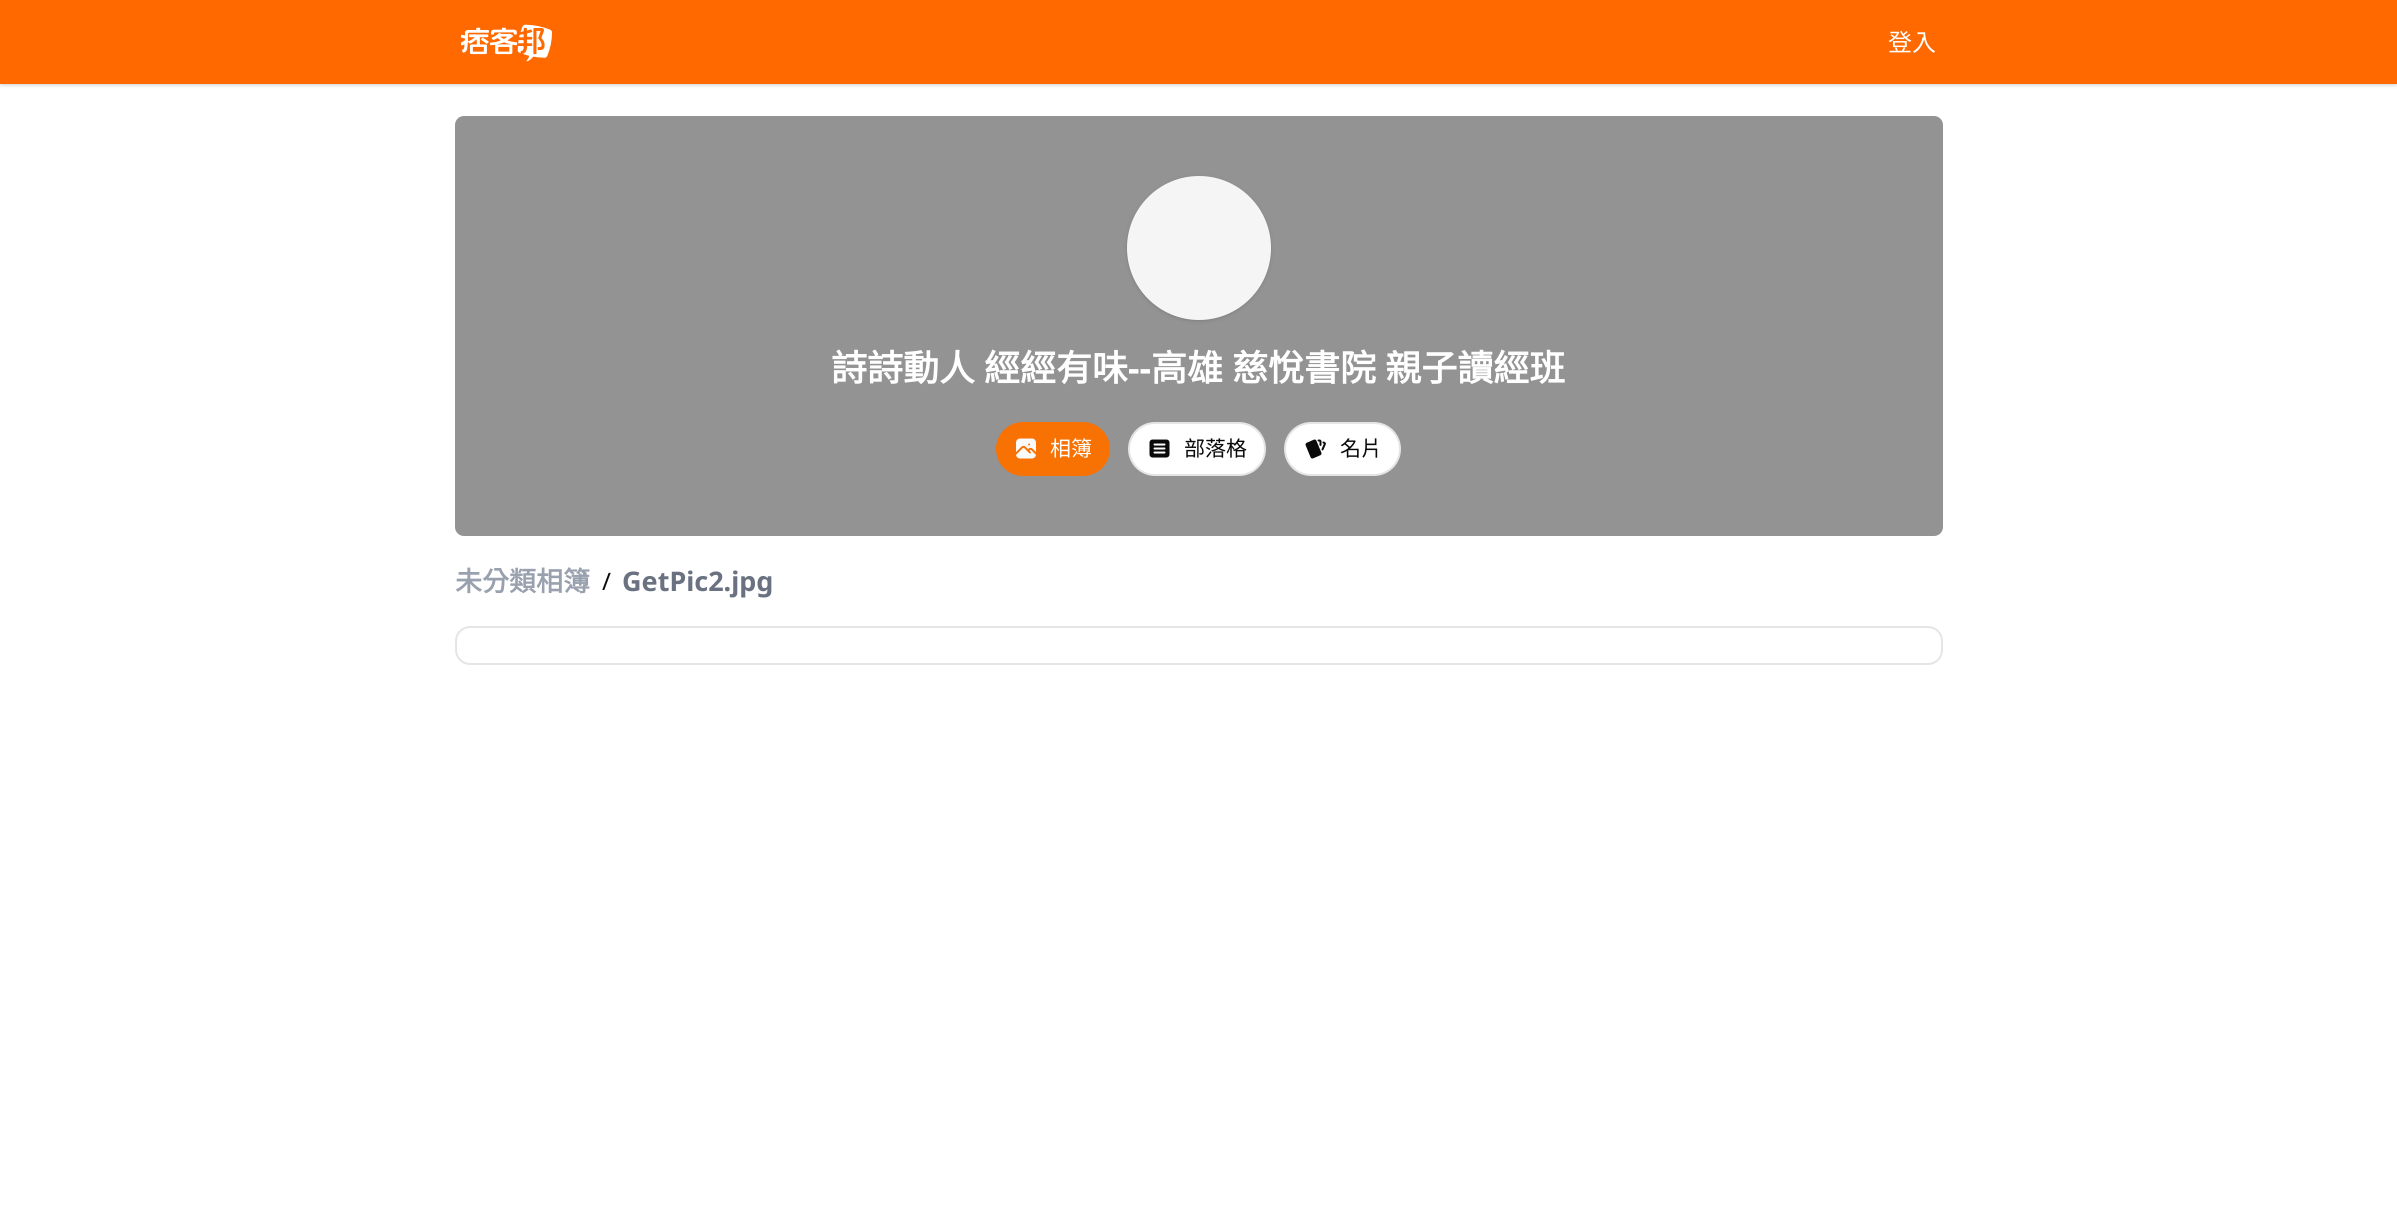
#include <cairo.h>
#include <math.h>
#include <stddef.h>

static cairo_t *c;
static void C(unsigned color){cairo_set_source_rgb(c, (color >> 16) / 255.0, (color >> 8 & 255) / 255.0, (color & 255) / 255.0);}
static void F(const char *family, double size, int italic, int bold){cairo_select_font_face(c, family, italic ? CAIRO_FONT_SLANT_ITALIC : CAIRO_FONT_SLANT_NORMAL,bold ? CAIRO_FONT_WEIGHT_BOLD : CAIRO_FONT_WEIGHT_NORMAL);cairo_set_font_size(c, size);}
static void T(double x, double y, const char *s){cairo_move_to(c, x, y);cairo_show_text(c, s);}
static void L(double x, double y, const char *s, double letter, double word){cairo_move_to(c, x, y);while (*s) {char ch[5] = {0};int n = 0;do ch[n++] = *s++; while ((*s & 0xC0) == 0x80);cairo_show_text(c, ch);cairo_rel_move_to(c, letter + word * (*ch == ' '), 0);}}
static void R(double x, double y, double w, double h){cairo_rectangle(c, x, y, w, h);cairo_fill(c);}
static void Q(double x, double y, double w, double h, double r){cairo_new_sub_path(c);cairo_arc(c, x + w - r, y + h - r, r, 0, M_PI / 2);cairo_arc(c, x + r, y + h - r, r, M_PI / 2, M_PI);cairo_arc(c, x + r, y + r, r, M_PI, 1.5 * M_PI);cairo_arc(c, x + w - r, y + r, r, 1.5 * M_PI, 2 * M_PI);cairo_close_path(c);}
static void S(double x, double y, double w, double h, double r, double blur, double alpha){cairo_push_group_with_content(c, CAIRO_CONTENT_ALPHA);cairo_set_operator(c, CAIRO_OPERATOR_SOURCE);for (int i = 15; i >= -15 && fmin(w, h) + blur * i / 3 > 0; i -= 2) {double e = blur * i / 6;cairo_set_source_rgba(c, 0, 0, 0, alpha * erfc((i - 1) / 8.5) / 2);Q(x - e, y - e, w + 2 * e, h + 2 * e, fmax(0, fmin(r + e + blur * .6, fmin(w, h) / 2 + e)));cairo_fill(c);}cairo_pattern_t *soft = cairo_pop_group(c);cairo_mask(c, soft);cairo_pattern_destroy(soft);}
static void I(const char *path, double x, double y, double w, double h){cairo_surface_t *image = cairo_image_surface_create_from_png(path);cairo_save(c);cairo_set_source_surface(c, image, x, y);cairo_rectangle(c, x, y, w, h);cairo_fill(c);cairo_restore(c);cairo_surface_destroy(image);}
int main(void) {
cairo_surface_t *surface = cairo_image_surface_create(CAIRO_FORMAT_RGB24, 2397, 1232);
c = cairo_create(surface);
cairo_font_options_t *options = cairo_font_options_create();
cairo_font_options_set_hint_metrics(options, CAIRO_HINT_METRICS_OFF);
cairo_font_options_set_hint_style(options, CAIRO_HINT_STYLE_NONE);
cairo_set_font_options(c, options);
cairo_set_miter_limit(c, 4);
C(0xffffff);
cairo_paint(c);
C(0x000000);
S(2,3,2394,81,0,1.5,.1);
S(0,2,2397,84,0,2,.1);
C(0xff6900);
R(0,0,2397,84);
I("1.png",461,24,91,38);
F("Noto Sans CJK TC",24,0,0);
C(0xffffff);
T(1888,51,"登入");
C(0xf5f5f5);
Q(455,116,1488,420,9);
cairo_fill(c);
cairo_set_source_rgba(c,0,0,0,0.4);
Q(455,116,1488,420,9);
cairo_fill(c);
C(0x000000);
S(1128,179,141,141,70.5,1.5,.1);
S(1127,177,144,144,72,2,.1);
C(0xf5f5f5);
cairo_arc(c,1199,248,72,0,2 * M_PI);
cairo_fill(c);
F("Noto Sans CJK TC",36,0,1);
C(0xffffff);
L(831,381,"詩詩動人 經經有味",0,1);
F("Noto Sans",36,0,1);
T(1128,381,"--");
F("Noto Sans CJK TC",36,0,1);
L(1151,381,"高雄 慈悅書院 親子讀經班",0,1);
C(0xf87103);
Q(996,422,114,54,27);
cairo_fill(c);
I("2.png",1016,438,20,21);
F("Noto Sans CJK TC",21,0,0);
C(0xffffff);
T(1050,456,"相簿");
Q(1129,423,136,52,26);
cairo_fill_preserve(c);
C(0xe5e5e5);
cairo_stroke(c);
I("3.png",1149,439,21,19);
C(0x0a0a0a);
T(1184,456,"部落格");
C(0xffffff);
Q(1285,423,115,52,26);
cairo_fill_preserve(c);
C(0xe5e5e5);
cairo_stroke(c);
I("4.png",1305,439,21,20);
C(0x0a0a0a);
T(1340,456,"名片");
F("Noto Sans CJK TC",27,0,1);
C(0x99a1af);
T(455,591,"未分類相簿");
F("Noto Sans",24,0,0);
C(0x0a0a0a);
T(602,590,"/");
F("Noto Sans",27,0,1);
C(0x6a7282);
T(622,591,"GetPic2.jpg");
Q(456,627,1486,37,14);
C(0xe5e5e5);
cairo_stroke(c);
cairo_surface_write_to_png(surface, "o.png");
cairo_font_options_destroy(options);
cairo_destroy(c);
cairo_surface_destroy(surface);
return 0;
}
